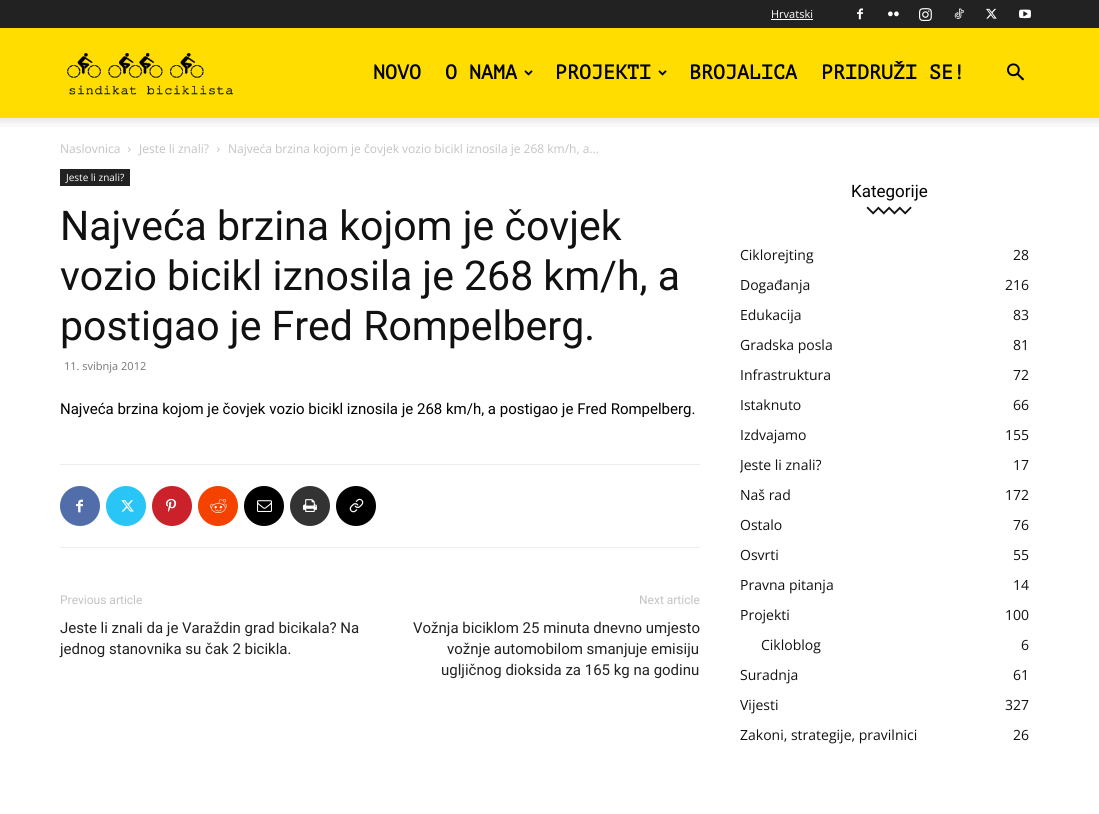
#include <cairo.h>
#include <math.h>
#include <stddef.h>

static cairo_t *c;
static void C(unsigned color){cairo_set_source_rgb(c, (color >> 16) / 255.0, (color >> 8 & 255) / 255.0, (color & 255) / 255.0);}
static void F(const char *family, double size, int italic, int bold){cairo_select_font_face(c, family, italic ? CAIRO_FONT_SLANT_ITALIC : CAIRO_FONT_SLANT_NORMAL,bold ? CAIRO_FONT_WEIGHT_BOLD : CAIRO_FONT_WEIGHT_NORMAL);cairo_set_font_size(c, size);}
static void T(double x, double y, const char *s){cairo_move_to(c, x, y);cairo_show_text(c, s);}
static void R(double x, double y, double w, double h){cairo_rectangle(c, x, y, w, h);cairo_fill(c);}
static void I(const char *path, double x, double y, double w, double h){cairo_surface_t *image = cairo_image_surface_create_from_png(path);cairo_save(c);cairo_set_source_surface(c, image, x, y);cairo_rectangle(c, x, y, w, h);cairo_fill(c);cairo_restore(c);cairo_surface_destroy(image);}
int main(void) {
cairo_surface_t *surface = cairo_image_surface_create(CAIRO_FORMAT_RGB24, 1099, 814);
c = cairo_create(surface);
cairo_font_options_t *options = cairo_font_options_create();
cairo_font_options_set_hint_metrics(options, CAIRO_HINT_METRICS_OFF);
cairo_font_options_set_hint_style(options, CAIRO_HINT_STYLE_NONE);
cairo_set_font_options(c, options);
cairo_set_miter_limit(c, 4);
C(0xffffff);
cairo_paint(c);
C(0x222222);
R(0,0,1099,28);
F("Open Sans",11,0,0);
C(0xffffff);
T(771,18,"Hrvatski");
R(771,19,42,1);
I("1.png",857,8,6,12);
I("2.png",888,11,11,6);
I("3.png",919,8,13,13);
I("4.png",954,8,10,11);
I("5.png",986,8,11,11);
I("6.png",1019,9,12,10);
C(0xffdd00);
R(0,28,1099,90);
I("7.png",67,53,166,42);
F("PT Mono",20,0,1);
C(0x000000);
T(373,79,"NOVO");
T(445,79,"O NAMA");
I("8.png",524,70,9,6);
T(555,79,"PROJEKTI");
I("8.png",658,70,9,6);
T(689,79,"BROJALICA");
T(821,79,"PRIDRUŽI SE!");
I("9.png",1007,63,17,18);
I("10.png",0,118,1099,9);
F("Open Sans",12,0,0);
C(0xc3c3c3);
T(60,153,"Naslovnica");
I("11.png",128,147,3,5);
T(139,153,"Jeste li znali?");
I("11.png",217,147,3,5);
T(228,153,"Najveća brzina kojom je čovjek vozio bicikl iznosila je 268 km/h, a...");
C(0x222222);
R(60,169,70,17);
F("Open Sans",10,0,0);
C(0xffffff);
T(66,181,"Jeste li znali?");
F("Roboto",41,0,0);
C(0x111111);
T(60,240,"Najveća brzina kojom je čovjek");
T(60,290,"vozio bicikl iznosila je 268 km/h, a");
T(60,340,"postigao je Fred Rompelberg.");
F("Open Sans",11,0,0);
C(0x767676);
T(64,370,"11. svibnja 2012");
F("Roboto",15,0,0);
C(0x000000);
T(60,414,"Najveća brzina kojom je čovjek vozio bicikl iznosila je 268 km/h, a postigao je Fred Rompelberg.");
C(0xededed);
R(60,464,640,1);
R(60,547,640,1);
C(0x516eab);
cairo_new_path(c);
cairo_arc(c,80,506,20,0,2 * M_PI);
cairo_fill(c);
I("12.png",76,499,7,14);
C(0x29c5f6);
cairo_arc(c,126,506,20,0,2 * M_PI);
cairo_fill(c);
I("13.png",121,500,13,12);
C(0xca212a);
cairo_arc(c,172,506,20,0,2 * M_PI);
cairo_fill(c);
I("14.png",166,498,11,14);
C(0xf54200);
cairo_arc(c,218,506,20,0,2 * M_PI);
cairo_fill(c);
I("15.png",210,499,17,14);
C(0x000000);
cairo_arc(c,264,506,20,0,2 * M_PI);
cairo_fill(c);
I("16.png",257,500,15,12);
C(0x333333);
cairo_arc(c,310,506,20,0,2 * M_PI);
cairo_fill(c);
I("17.png",303,499,14,13);
C(0x000000);
cairo_arc(c,356,506,20,0,2 * M_PI);
cairo_fill(c);
I("18.png",349,498,15,15);
F("Roboto",12,0,0);
C(0xc3c3c3);
T(60,604,"Previous article");
F("Roboto",15,0,0);
C(0x222222);
T(60,633,"Jeste li znali da je Varaždin grad bicikala? Na");
T(60,654,"jednog stanovnika su čak 2 bicikla.");
F("Roboto",12,0,0);
C(0xc3c3c3);
T(639,604,"Next article");
F("Roboto",15,0,0);
C(0x222222);
T(413,633,"Vožnja biciklom 25 minuta dnevno umjesto");
T(447,654,"vožnje automobilom smanjuje emisiju");
T(441,675,"ugljičnog dioksida za 165 kg na godinu");
F("Roboto",17,0,0);
C(0x000000);
T(851,197,"Kategorije");
I("19.png",866,206,46,9);
F("Open Sans",14,0,0);
C(0x111111);
T(740,260,"Ciklorejting");
T(1013,260,"28");
T(740,290,"Događanja");
T(1005,290,"216");
T(740,320,"Edukacija");
T(1013,320,"83");
T(740,350,"Gradska posla");
T(1013,350,"81");
T(740,380,"Infrastruktura");
T(1013,380,"72");
T(740,410,"Istaknuto");
T(1013,410,"66");
T(740,440,"Izdvajamo");
T(1005,440,"155");
cairo_save(c);
cairo_rectangle(c,740,169,300,595);
cairo_clip(c);
T(740,470,"Jeste li znali?");
cairo_restore(c);
T(1013,470,"17");
T(740,500,"Naš rad");
T(1005,500,"172");
T(740,530,"Ostalo");
T(1013,530,"76");
T(740,560,"Osvrti");
T(1013,560,"55");
T(740,590,"Pravna pitanja");
T(1013,590,"14");
T(740,620,"Projekti");
T(1005,620,"100");
T(761,650,"Cikloblog");
T(1021,650,"6");
T(740,680,"Suradnja");
T(1013,680,"61");
T(740,710,"Vijesti");
T(1005,710,"327");
T(740,740,"Zakoni, strategije, pravilnici");
T(1013,740,"26");
cairo_surface_write_to_png(surface, "o.png");
cairo_font_options_destroy(options);
cairo_destroy(c);
cairo_surface_destroy(surface);
return 0;
}
